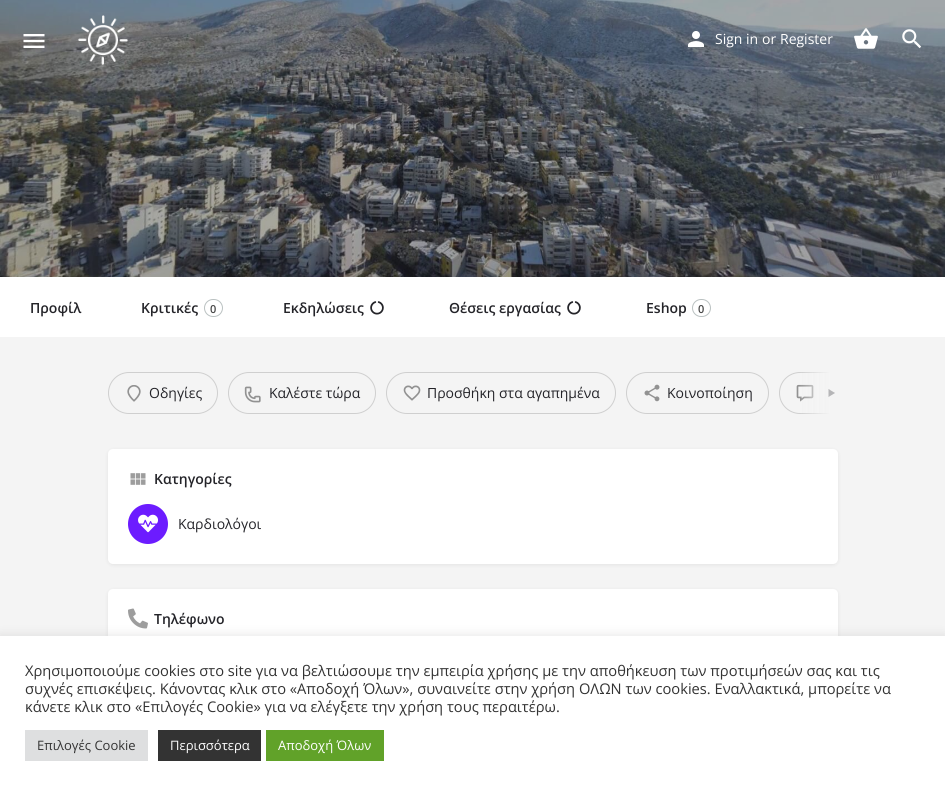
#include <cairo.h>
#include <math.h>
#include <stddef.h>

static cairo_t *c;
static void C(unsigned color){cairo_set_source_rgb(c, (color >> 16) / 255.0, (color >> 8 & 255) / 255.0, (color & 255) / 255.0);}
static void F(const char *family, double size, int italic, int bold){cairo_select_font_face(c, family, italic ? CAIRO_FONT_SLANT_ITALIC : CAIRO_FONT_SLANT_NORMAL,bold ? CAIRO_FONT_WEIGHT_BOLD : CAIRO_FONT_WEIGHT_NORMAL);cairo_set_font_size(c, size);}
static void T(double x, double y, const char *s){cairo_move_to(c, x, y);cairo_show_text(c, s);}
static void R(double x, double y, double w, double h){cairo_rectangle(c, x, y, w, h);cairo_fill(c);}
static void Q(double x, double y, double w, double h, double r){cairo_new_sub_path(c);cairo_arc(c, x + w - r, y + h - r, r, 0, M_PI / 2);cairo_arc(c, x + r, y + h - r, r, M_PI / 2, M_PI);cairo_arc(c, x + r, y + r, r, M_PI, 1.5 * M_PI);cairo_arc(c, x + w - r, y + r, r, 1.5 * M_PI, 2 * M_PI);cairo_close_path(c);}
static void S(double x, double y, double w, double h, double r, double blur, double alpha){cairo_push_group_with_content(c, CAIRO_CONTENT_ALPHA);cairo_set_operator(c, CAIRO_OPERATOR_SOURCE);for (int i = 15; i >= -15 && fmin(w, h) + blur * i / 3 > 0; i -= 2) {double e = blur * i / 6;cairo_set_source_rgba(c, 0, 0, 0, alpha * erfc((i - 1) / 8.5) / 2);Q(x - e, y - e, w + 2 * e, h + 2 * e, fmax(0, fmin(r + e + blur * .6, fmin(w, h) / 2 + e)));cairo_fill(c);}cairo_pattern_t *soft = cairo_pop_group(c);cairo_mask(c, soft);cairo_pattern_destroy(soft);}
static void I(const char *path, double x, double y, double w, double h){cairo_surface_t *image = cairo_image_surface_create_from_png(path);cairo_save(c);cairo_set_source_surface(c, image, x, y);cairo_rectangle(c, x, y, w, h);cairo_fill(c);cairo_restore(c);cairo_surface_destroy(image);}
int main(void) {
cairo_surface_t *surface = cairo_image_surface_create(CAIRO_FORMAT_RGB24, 945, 791);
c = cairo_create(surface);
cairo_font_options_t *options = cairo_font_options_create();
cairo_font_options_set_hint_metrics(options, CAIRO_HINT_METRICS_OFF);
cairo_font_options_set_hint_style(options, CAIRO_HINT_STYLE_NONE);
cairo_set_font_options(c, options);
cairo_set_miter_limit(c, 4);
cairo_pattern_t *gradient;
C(0xf4f4f4);
cairo_paint(c);
I("6.png",0,0,945,277);
I("1.png",23,34,22,14);
I("2.png",78,15,50,50);
I("3.png",688,31,16,16);
F("Open Sans",14,0,0);
C(0xffffff);
T(715,44,"Sign in");
T(762,44,"or");
T(780,44,"Register");
I("4.png",854,28,24,21);
I("5.png",902,29,20,20);
R(0,277,945,60);
F("Open Sans SemiBold",14,0,0);
C(0x242429);
T(30,313,"Προφίλ");
T(141,313,"Κριτικές");
Q(204.5,299.5,18,17,8.5);
C(0xbac1c1);
cairo_set_line_width(c,1);
cairo_stroke(c);
F("Open Sans SemiBold",11,0,0);
C(0x484848);
T(210,313,"0");
F("Open Sans SemiBold",14,0,0);
C(0x242429);
T(283,313,"Εκδηλώσεις");
I("7.png",370,301,14,14);
T(449,313,"Θέσεις εργασίας");
I("7.png",567,301,14,14);
T(646,313,"Eshop");
Q(692.5,299.5,18,17,8.5);
C(0xbac1c1);
cairo_stroke(c);
F("Open Sans SemiBold",11,0,0);
C(0x484848);
T(698,313,"0");
cairo_save(c);
cairo_rectangle(c,108,372,730,42);
cairo_clip(c);
Q(779.5,372.5,156,41,20.5);
C(0xcfcfcf);
cairo_stroke(c);
cairo_restore(c);
I("8.png",796,384,18,18);
Q(108.5,372.5,109,41,20.5);
C(0xcfcfcf);
cairo_stroke(c);
I("9.png",127,385,14,17);
F("Open Sans",14,0,0);
C(0x242429);
T(149,398,"Οδηγίες");
Q(228.5,372.5,147,41,20.5);
C(0xcfcfcf);
cairo_stroke(c);
I("10.png",244,386,17,17);
C(0x242429);
T(269,398,"Καλέστε τώρα");
Q(386.5,372.5,229,41,20.5);
C(0xcfcfcf);
cairo_stroke(c);
I("11.png",403,385,18,16);
C(0x242429);
T(427,398,"Προσθήκη στα αγαπημένα");
Q(626.5,372.5,142,41,20.5);
C(0xcfcfcf);
cairo_stroke(c);
I("12.png",644,384,16,18);
C(0x242429);
T(667,398,"Κοινοποίηση");
gradient = cairo_pattern_create_linear(799,393,838,393);
cairo_pattern_add_color_stop_rgba(gradient,0,0.957,0.957,0.957,0);
cairo_pattern_add_color_stop_rgba(gradient,.8,0.957,0.957,0.957,1);
cairo_set_source(c,gradient);
cairo_pattern_destroy(gradient);
R(800,372,38,42);
cairo_set_source_rgba(c,0.141,0.141,0.161,0.3);
cairo_new_path(c);
cairo_move_to(c,828.5,389);
cairo_line_to(c,835,393);
cairo_line_to(c,828.5,397);
cairo_close_path(c);
cairo_fill(c);
C(0x000000);
S(108,450,730,115,5,2,.07);
C(0xffffff);
Q(108,449,730,115,5);
cairo_fill(c);
I("13.png",130,473,16,12);
F("Open Sans SemiBold",14,0,0);
C(0x242429);
T(154,484,"Κατηγορίες");
C(0x6c1cff);
cairo_new_path(c);
cairo_arc(c,148,524,20,0,2 * M_PI);
cairo_fill(c);
I("14.png",138,514,20,19);
F("Open Sans",14,0,0);
C(0x242429);
T(178,529,"Καρδιολόγοι");
C(0x000000);
S(108,590,730,117,5,2,.07);
C(0xffffff);
Q(108,589,730,117,5);
cairo_fill(c);
I("15.png",128,608,20,21);
F("Open Sans SemiBold",14,0,0);
C(0x242429);
T(154,624,"Τηλέφωνο");
C(0xacabab);
S(0,635,945,155,0,5,.3);
C(0xffffff);
R(0,636,945,155);
F("Open Sans",14.67,0,0);
C(0x333333);
T(25,676,"Χρησιμοποιούμε cookies στο site για να βελτιώσουμε την εμπειρία χρήσης με την αποθήκευση των προτιμήσεών σας και τις");
T(25,694,"συχνές επισκέψεις. Κάνοντας κλικ στο «Αποδοχή Όλων», συναινείτε στην χρήση ΟΛΩΝ των cookies. Εναλλακτικά, μπορείτε να");
T(25,712,"κάνετε κλικ στο «Επιλογές Cookie» για να ελέγξετε την χρήση τους περαιτέρω.");
C(0xdedfe0);
R(25,730,123,31);
F("Open Sans",13,0,0);
C(0x333333);
T(37,750,"Επιλογές Cookie");
R(158,730,103,31);
C(0xffffff);
T(170,750,"Περισσότερα");
C(0x61a229);
R(266,730,118,31);
C(0xffffff);
T(278,750,"Αποδοχή Όλων");
cairo_surface_write_to_png(surface, "o.png");
cairo_font_options_destroy(options);
cairo_destroy(c);
cairo_surface_destroy(surface);
return 0;
}
